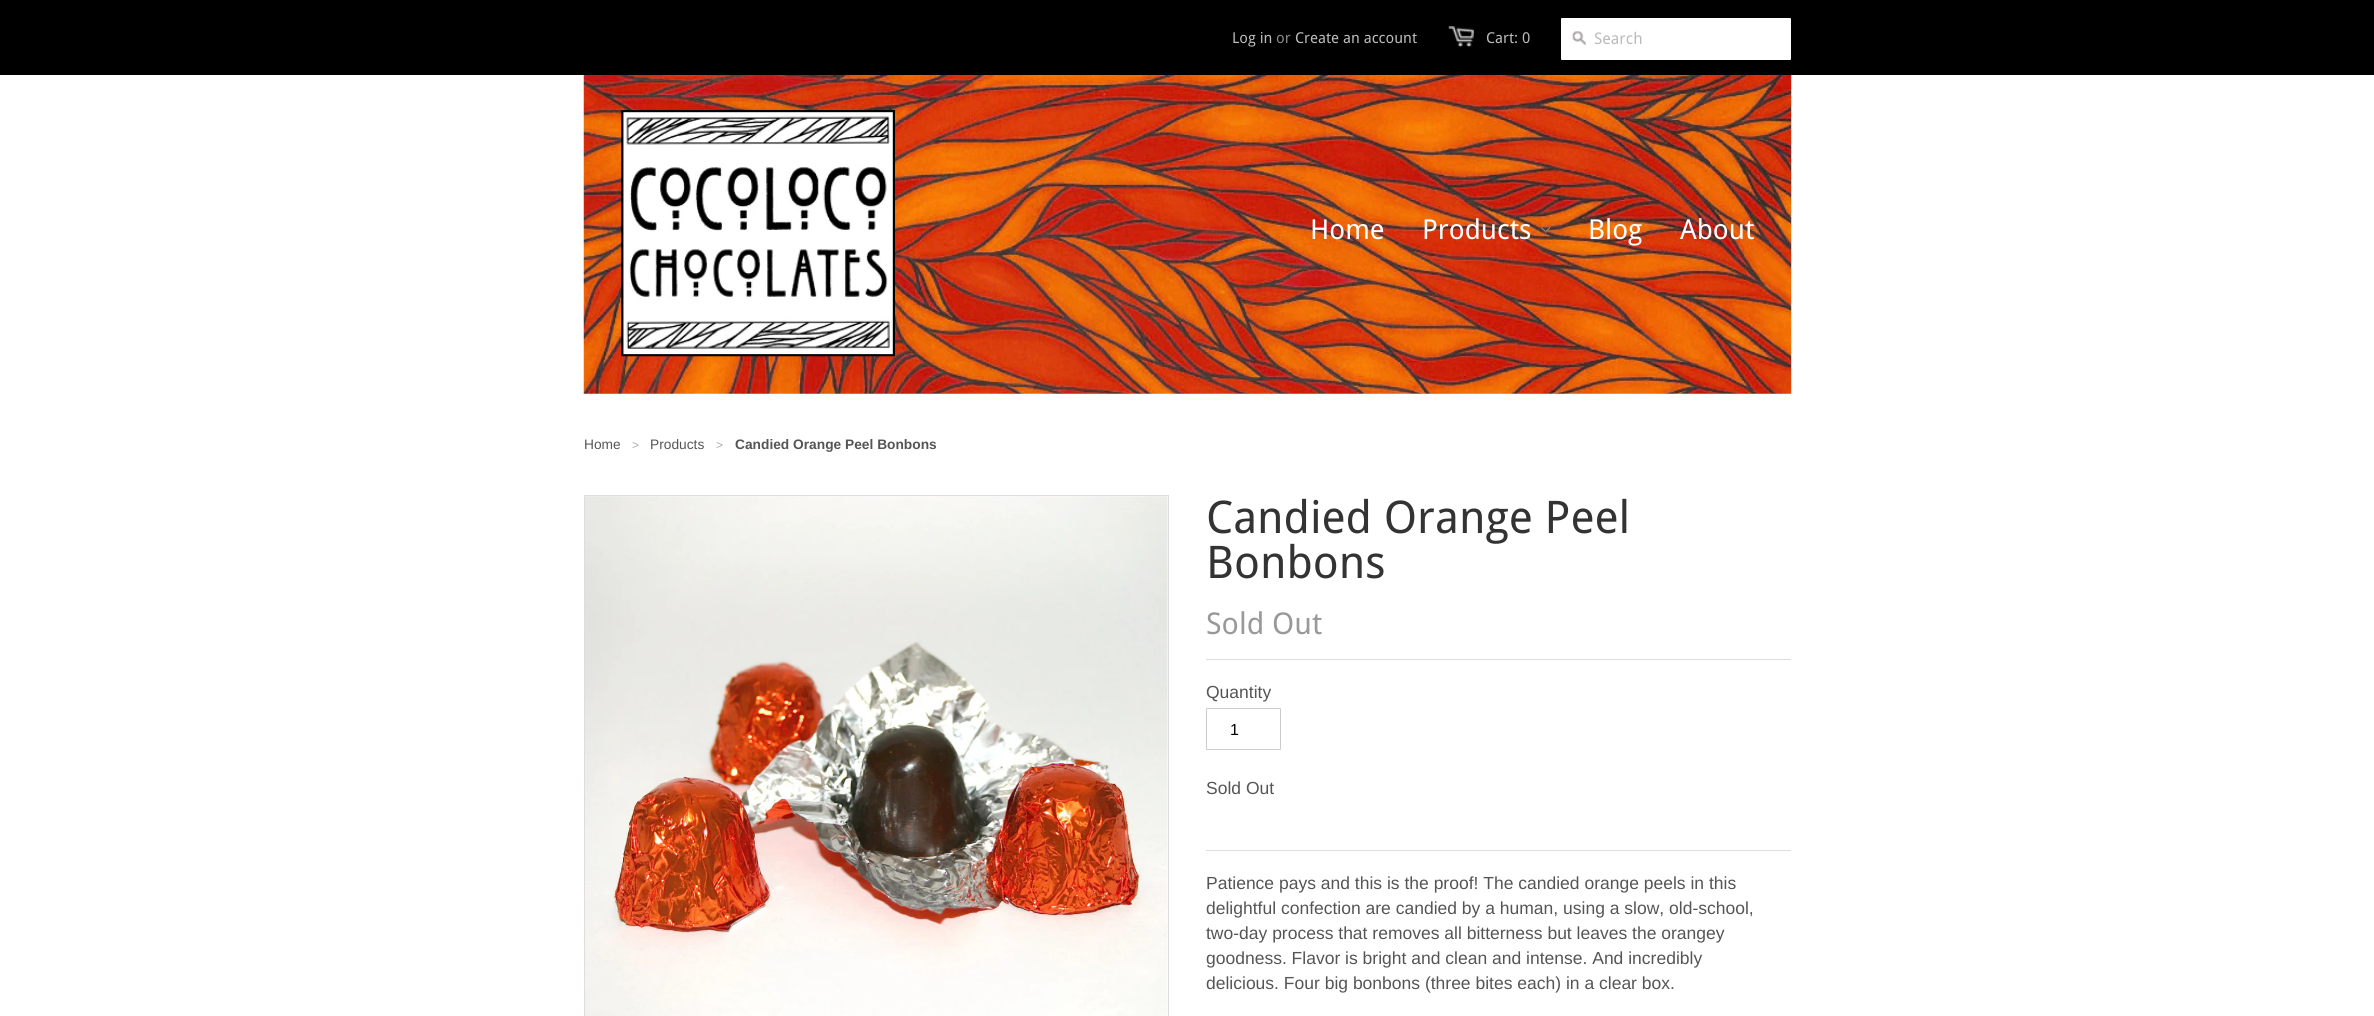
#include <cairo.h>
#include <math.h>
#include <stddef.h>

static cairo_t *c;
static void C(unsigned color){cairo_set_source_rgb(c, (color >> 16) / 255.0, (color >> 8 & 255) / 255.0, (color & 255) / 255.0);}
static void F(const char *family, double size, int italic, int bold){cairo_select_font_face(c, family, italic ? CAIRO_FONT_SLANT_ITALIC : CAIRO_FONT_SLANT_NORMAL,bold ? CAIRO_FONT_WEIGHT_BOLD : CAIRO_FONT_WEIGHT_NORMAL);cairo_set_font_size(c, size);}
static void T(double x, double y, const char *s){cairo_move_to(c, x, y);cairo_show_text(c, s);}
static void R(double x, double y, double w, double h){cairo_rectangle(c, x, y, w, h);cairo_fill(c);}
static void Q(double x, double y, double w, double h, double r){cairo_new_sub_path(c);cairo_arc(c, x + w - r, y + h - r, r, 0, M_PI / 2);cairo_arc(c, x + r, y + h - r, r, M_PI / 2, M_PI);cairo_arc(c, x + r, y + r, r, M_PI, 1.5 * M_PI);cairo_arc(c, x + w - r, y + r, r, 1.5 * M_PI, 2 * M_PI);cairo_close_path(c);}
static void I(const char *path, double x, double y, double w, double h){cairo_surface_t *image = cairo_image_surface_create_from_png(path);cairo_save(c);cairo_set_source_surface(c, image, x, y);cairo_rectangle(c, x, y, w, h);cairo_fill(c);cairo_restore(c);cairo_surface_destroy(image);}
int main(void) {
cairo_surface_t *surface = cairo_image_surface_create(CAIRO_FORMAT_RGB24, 2374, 1016);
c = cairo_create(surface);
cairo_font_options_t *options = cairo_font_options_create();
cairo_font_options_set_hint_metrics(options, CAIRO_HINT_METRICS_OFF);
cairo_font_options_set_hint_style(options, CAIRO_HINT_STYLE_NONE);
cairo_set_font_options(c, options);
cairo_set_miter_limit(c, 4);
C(0xffffff);
cairo_paint(c);
C(0x000000);
R(0,0,2374,75);
F("Droid Sans",15,0,0);
C(0xbbbbbb);
T(1232,43,"Log in");
C(0x888888);
T(1276,43,"or");
C(0xbbbbbb);
T(1295,43,"Create an account");
I("1.png",1448,26,26,21);
T(1486,43,"Cart: 0");
C(0xffffff);
Q(1561,18,230,42,1);
cairo_fill(c);
I("2.png",1572,31,14,14);
F("Droid Sans",16,0,0);
C(0xbbbbbb);
T(1594,44,"Search");
I("3.png",583,75,1209,319);
I("4.png",621,110,274,247);
F("Droid Sans",27.5,0,0);
C(0xffffff);
T(1310,239,"Home");
I("5.png",1541,227,9,6);
T(1422,239,"Products");
T(1588,239,"Blog");
T(1680,239,"About");
F("Liberation Sans",13.75,0,0);
C(0x555555);
T(584,449,"Home");
F("Liberation Sans",12,0,0);
C(0xaaaaaa);
T(632,449,">");
F("Liberation Sans",13.75,0,0);
C(0x555555);
T(650,449,"Products");
F("Liberation Sans",12,0,0);
C(0xaaaaaa);
T(716,449,">");
F("Liberation Sans",13.75,0,1);
C(0x555555);
T(735,449,"Candied Orange Peel Bonbons");
cairo_rectangle(c,584.5,495.5,584,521);
C(0xdddddd);
cairo_set_line_width(c,1);
cairo_stroke(c);
I("6.png",585,496,583,520);
F("Droid Sans",45,0,0);
C(0x333333);
T(1206,533,"Candied Orange Peel");
T(1206,578,"Bonbons");
F("Droid Sans",30,0,0);
C(0x999999);
T(1206,634,"Sold Out");
C(0xdddddd);
R(1206,659,585,1);
R(1206,850,585,1);
F("Liberation Sans",17.5,0,0);
C(0x555555);
T(1206,698,"Quantity");
Q(1206.5,708.5,74,41,.5);
C(0xcccccc);
cairo_stroke(c);
F("Liberation Sans",16,0,0);
C(0x000000);
T(1230,735,"1");
F("Liberation Sans",17.5,0,0);
C(0x555555);
T(1206,794,"Sold Out");
T(1206,889,"Patience pays and this is the proof! The candied orange peels in this");
T(1206,914,"delightful confection are candied by a human, using a slow, old-school,");
T(1206,939,"two-day process that removes all bitterness but leaves the orangey");
T(1206,964,"goodness. Flavor is bright and clean and intense. And incredibly");
T(1206,989,"delicious. Four big bonbons (three bites each) in a clear box.");
cairo_surface_write_to_png(surface, "o.png");
cairo_font_options_destroy(options);
cairo_destroy(c);
cairo_surface_destroy(surface);
return 0;
}
